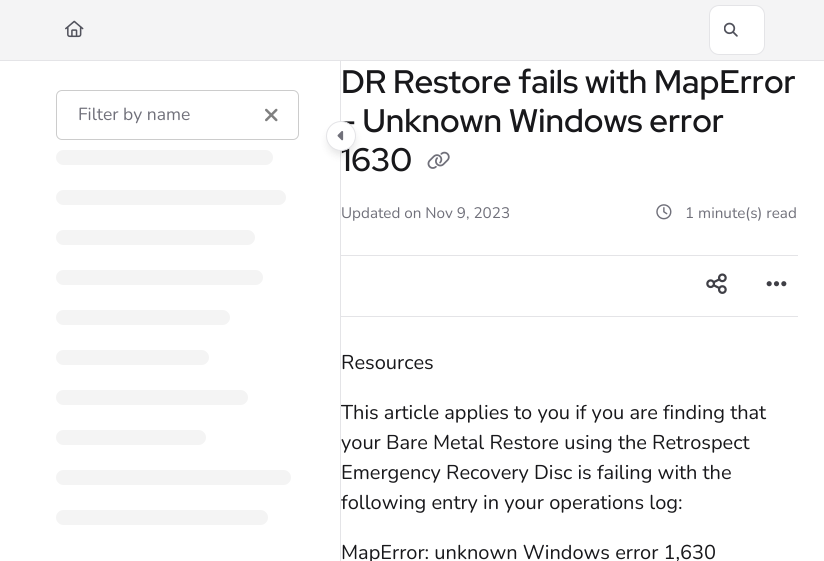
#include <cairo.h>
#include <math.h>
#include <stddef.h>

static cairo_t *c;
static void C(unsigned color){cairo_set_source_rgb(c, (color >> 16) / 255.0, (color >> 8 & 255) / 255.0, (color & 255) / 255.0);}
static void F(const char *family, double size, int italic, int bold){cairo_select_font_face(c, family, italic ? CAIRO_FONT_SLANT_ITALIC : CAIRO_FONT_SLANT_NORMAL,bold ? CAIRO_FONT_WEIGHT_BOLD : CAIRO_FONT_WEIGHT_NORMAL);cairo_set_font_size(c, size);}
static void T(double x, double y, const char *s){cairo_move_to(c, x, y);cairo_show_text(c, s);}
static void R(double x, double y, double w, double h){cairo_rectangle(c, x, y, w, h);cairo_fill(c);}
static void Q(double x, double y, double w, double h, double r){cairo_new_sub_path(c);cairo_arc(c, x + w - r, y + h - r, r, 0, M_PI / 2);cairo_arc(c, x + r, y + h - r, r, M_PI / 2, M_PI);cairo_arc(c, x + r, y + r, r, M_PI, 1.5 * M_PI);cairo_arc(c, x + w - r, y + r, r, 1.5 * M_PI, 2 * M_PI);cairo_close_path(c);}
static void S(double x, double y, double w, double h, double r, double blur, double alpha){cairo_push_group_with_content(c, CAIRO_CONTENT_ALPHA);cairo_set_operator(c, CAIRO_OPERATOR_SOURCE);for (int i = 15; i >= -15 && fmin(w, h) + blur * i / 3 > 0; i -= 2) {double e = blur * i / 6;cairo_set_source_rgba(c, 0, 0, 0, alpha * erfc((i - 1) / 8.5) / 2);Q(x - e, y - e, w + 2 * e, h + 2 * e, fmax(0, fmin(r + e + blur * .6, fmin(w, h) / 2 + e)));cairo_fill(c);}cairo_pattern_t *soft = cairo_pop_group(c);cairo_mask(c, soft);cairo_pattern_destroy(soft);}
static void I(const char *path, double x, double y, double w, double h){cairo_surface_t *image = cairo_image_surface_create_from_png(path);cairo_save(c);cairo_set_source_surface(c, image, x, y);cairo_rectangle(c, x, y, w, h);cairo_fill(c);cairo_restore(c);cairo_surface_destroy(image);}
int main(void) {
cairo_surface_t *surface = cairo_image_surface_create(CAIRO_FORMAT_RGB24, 824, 561);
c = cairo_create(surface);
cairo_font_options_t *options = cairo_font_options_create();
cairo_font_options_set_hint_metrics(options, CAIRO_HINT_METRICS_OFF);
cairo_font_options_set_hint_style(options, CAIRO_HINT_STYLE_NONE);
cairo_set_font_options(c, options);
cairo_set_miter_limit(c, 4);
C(0xffffff);
cairo_paint(c);
C(0xf4f4f5);
R(0,0,824,60);
C(0xe4e4e7);
R(0,60,824,1);
I("1.png",65,20,19,18);
C(0xffffff);
Q(709.5,5.5,55,49,9.5);
cairo_fill_preserve(c);
C(0xe4e4e7);
cairo_set_line_width(c,1);
cairo_stroke(c);
I("2.png",724,22,14,15);
F("Nunito",20,0,0);
C(0x18181b);
T(341,419,"This article applies to you if you are finding that");
T(341,509,"following entry in your operations log:");
C(0xe4e4e7);
R(340,61,1,500);
Q(56.5,90.5,242,49,5.5);
C(0xcccccc);
cairo_stroke(c);
F("Nunito",17.5,0,0);
C(0x70707a);
T(78,120,"Filter by name");
I("3.png",265,108,13,14);
C(0x000000);
S(328,128,27,27,13.5,4,.1);
F("Red Hat Display SemiBold",32.6,0,0);
C(0x18181b);
T(341,132,"- Unknown Windows error");
T(341,171,"1630");
C(0xffffff);
cairo_new_path(c);
cairo_arc(c,341,136,14.5,0,2 * M_PI);
cairo_fill_preserve(c);
C(0xe4e4e7);
cairo_stroke(c);
I("4.png",337,131,7,10);
C(0xf4f4f4);
Q(56,150,217,15,7.5);
cairo_fill(c);
Q(56,190,230,15,7.5);
cairo_fill(c);
Q(56,230,199,15,7.5);
cairo_fill(c);
Q(56,270,207,15,7.5);
cairo_fill(c);
Q(56,310,174,15,7.5);
cairo_fill(c);
Q(56,350,153,15,7.5);
cairo_fill(c);
Q(56,390,192,15,7.5);
cairo_fill(c);
Q(56,430,150,15,7.5);
cairo_fill(c);
Q(56,470,235,15,7.5);
cairo_fill(c);
Q(56,510,212,15,7.5);
cairo_fill(c);
C(0x18181b);
T(341,93,"DR Restore fails with MapError");
I("5.png",427,151,23,18);
F("Nunito",15.25,0,0);
C(0x70707a);
T(341,218,"Updated on Nov 9, 2023");
I("6.png",656,204,16,16);
T(685,218,"1 minute(s) read");
C(0xe4e4e7);
R(341,255,457,1);
R(341,316,457,1);
I("7.png",706,273,21,21);
I("8.png",766,281,21,6);
F("Nunito",20,0,0);
C(0x18181b);
T(341,369,"Resources");
T(341,449,"your Bare Metal Restore using the Retrospect");
T(341,479,"Emergency Recovery Disc is failing with the");
T(341,559,"MapError: unknown Windows error 1,630");
cairo_surface_write_to_png(surface, "o.png");
cairo_font_options_destroy(options);
cairo_destroy(c);
cairo_surface_destroy(surface);
return 0;
}
